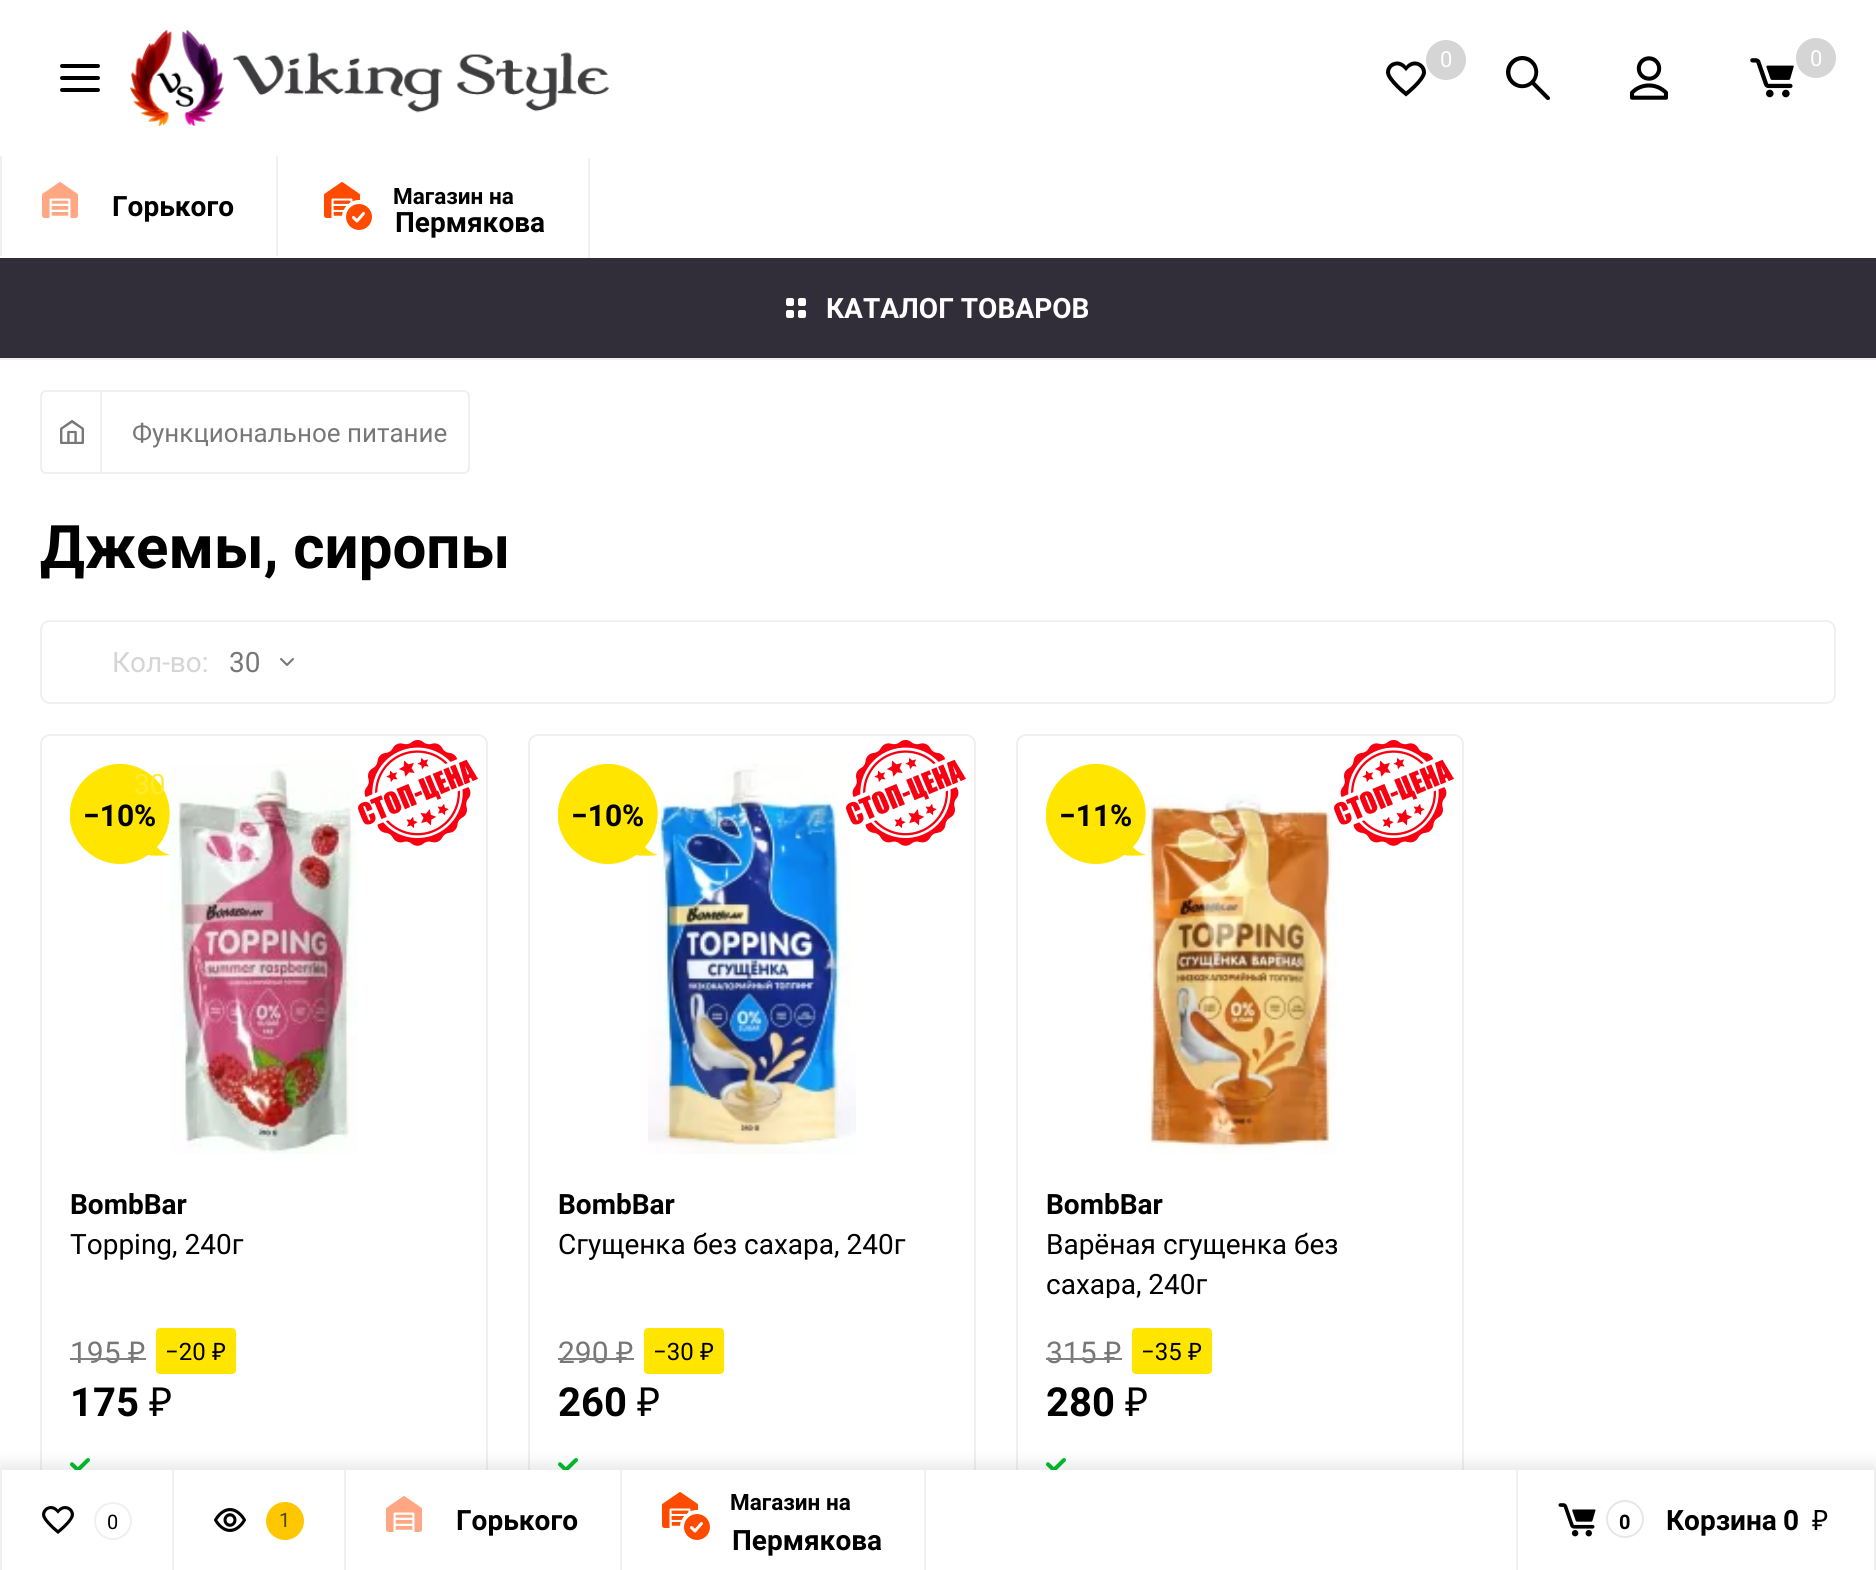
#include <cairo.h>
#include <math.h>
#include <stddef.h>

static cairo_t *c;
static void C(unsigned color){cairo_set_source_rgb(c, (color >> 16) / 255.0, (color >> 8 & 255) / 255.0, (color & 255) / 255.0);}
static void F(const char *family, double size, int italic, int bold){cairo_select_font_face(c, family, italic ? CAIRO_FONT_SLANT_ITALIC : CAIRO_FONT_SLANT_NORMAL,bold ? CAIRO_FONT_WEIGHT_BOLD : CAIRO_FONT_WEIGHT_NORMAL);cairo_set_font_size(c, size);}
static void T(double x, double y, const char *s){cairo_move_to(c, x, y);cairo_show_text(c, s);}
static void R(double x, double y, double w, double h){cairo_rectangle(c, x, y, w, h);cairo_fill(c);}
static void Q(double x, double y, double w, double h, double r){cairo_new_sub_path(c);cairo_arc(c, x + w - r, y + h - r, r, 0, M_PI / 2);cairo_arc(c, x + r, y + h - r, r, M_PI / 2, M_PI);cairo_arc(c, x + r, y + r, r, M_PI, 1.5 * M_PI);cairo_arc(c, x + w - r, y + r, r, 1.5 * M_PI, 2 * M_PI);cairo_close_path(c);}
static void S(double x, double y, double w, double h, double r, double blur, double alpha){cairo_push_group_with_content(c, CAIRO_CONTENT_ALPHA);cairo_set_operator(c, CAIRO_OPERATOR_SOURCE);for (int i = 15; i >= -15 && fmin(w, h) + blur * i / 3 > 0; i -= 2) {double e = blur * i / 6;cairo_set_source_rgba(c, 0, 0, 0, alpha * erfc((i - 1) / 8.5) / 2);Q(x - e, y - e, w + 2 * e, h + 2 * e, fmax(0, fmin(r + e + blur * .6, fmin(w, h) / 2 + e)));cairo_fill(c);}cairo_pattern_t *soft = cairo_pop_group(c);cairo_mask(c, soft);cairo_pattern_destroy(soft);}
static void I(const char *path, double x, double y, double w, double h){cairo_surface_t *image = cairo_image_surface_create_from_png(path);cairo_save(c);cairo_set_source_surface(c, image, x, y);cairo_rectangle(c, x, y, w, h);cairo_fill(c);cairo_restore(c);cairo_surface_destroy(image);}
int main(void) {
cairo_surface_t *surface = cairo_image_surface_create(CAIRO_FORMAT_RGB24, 1876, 1570);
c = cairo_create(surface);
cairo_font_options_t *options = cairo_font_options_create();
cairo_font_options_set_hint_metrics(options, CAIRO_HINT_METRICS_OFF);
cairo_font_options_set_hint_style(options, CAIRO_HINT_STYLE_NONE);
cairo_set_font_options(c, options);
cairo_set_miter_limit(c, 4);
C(0xffffff);
cairo_paint(c);
C(0xf0f0f0);
R(0,358,1876,2);
C(0x000000);
Q(60,76,40,4,2);
cairo_fill(c);
Q(60,64,40,4,2);
cairo_fill(c);
Q(60,88,40,4,2);
cairo_fill(c);
I("1.png",130,30,479,96);
I("2.png",1386,61,40,36);
C(0xd5d5d5);
cairo_arc(c,1446,60,20,0,2 * M_PI);
cairo_fill(c);
F("Roboto",22,0,0);
C(0xffffff);
T(1440,67,"0");
I("3.png",1506,56,44,44);
I("4.png",1630,56,38,44);
I("5.png",1750,58,44,40);
C(0xd5d5d5);
cairo_arc(c,1816,58,20,0,2 * M_PI);
cairo_fill(c);
C(0xffffff);
T(1810,66,"0");
C(0xf0f0f0);
R(276,156,2,100);
R(0,156,2,100);
I("6.png",42,182,36,36);
F("Roboto",28,0,1);
C(0x000000);
T(112,216,"Горького");
C(0xf0f0f0);
R(588,158,2,100);
I("7.png",324,182,48,48);
F("Roboto",22.5,0,1);
C(0x000000);
T(393,204,"Магазин на");
F("Roboto",28,0,1);
T(395,232,"Пермякова");
C(0x312e39);
R(0,258,1876,100);
I("8.png",786,298,20,20);
C(0xffffff);
T(826,318,"КАТАЛОГ ТОВАРОВ");
Q(41,391,428,82,5);
C(0xf0f0f0);
cairo_stroke(c);
R(100,392,2,80);
I("9.png",60,420,24,24);
F("Roboto",26,0,0);
C(0x777777);
T(132,442,"Функциональное питание");
F("Roboto",60,0,1);
C(0x000000);
T(40,568,"Джемы, сиропы");
Q(41,621,1794,82,9);
C(0xf0f0f0);
cairo_stroke(c);
F("Roboto",28,0,0);
C(0xd5d5d5);
T(112,672,"Кол-во:");
C(0x777777);
T(229,672,"30");
I("10.png",280,658,14,8);
Q(41,735,446,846,9);
C(0xf0f0f0);
cairo_stroke(c);
cairo_save(c);
cairo_rectangle(c,70,764,100,100);
cairo_clip(c);
C(0xffe500);
cairo_set_fill_rule(c,CAIRO_FILL_RULE_EVEN_ODD);
cairo_new_path(c);
cairo_move_to(c,157,847);
cairo_curve_to(c,160,851,164,853,170,855);
cairo_curve_to(c,160,856,153,856,148,855);
cairo_curve_to(c,108,883,54,841,74,795);
cairo_curve_to(c,79,783,89,773,101,768);
cairo_curve_to(c,116,761,134,763,148,773);
cairo_curve_to(c,173,789,177,825,157,847);
cairo_close_path(c);
cairo_fill(c);
cairo_restore(c);
C(0xffeb37);
T(134,794,"30");
F("Roboto",30,0,1);
C(0x000000);
T(83,826,"−10%");
I("11.png",170,764,187,390);
I("12.png",358,740,120,106);
F("Roboto",28,0,1);
T(70,1214,"BombBar");
F("Roboto",28,0,0);
T(70,1254,"Topping, 240г");
F("Roboto",30,0,0);
C(0x777777);
T(70,1363,"195");
F("Noto Sans",30,0,0);
T(128,1363,"₽");
C(0x808080);
R(70,1358,76,2);
C(0xffe500);
Q(156,1328,80,46,4);
cairo_fill(c);
F("Roboto",24,0,0);
C(0x000000);
T(165,1360,"−20");
F("Noto Sans",24,0,0);
T(212,1360,"₽");
F("Roboto",40,0,1);
T(70,1416,"175");
F("Noto Sans",40,0,0);
T(149,1416,"₽");
I("13.png",70,1458,20,12);
Q(529,735,446,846,9);
C(0xf0f0f0);
cairo_stroke(c);
I("14.png",648,764,208,390);
cairo_save(c);
cairo_rectangle(c,558,764,100,100);
cairo_clip(c);
C(0xffe500);
cairo_set_fill_rule(c,CAIRO_FILL_RULE_EVEN_ODD);
cairo_new_path(c);
cairo_move_to(c,645,847);
cairo_curve_to(c,648,851,652,853,658,855);
cairo_curve_to(c,648,856,641,856,636,855);
cairo_curve_to(c,596,883,542,841,562,795);
cairo_curve_to(c,567,783,577,773,589,768);
cairo_curve_to(c,604,761,622,763,636,773);
cairo_curve_to(c,661,789,665,825,645,847);
cairo_close_path(c);
cairo_fill(c);
cairo_restore(c);
F("Roboto",30,0,1);
C(0x000000);
T(571,826,"−10%");
I("15.png",846,740,120,106);
F("Roboto",28,0,1);
T(558,1214,"BombBar");
F("Roboto",28,0,0);
T(558,1254,"Сгущенка без сахара, 240г");
F("Roboto",30,0,0);
C(0x777777);
T(558,1363,"290");
F("Noto Sans",30,0,0);
T(616,1363,"₽");
C(0x808080);
R(558,1358,76,2);
C(0xffe500);
Q(644,1328,80,46,4);
cairo_fill(c);
F("Roboto",24,0,0);
C(0x000000);
T(653,1360,"−30");
F("Noto Sans",24,0,0);
T(700,1360,"₽");
F("Roboto",40,0,1);
T(558,1416,"260");
F("Noto Sans",40,0,0);
T(637,1416,"₽");
I("13.png",558,1458,20,12);
Q(1017,735,446,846,9);
C(0xf0f0f0);
cairo_stroke(c);
cairo_save(c);
cairo_rectangle(c,1046,764,100,100);
cairo_clip(c);
C(0xffe500);
cairo_set_fill_rule(c,CAIRO_FILL_RULE_EVEN_ODD);
cairo_new_path(c);
cairo_move_to(c,1133,847);
cairo_curve_to(c,1136,851,1140,853,1146,855);
cairo_curve_to(c,1136,856,1129,856,1124,855);
cairo_curve_to(c,1084,883,1030,841,1050,795);
cairo_curve_to(c,1055,783,1065,773,1077,768);
cairo_curve_to(c,1092,761,1110,763,1124,773);
cairo_curve_to(c,1149,789,1153,825,1133,847);
cairo_close_path(c);
cairo_fill(c);
cairo_restore(c);
F("Roboto",30,0,1);
C(0x000000);
T(1059,826,"−11%");
I("16.png",1148,794,189,360);
I("17.png",1334,740,120,106);
F("Roboto",28,0,1);
T(1046,1214,"BombBar");
F("Roboto",28,0,0);
T(1046,1254,"Варёная сгущенка без");
cairo_save(c);
cairo_rectangle(c,1046,1184,388,114);
cairo_clip(c);
T(1046,1294,"сахара, 240г");
cairo_restore(c);
F("Roboto",30,0,0);
C(0x777777);
T(1046,1363,"315");
F("Noto Sans",30,0,0);
T(1104,1363,"₽");
C(0x808080);
R(1046,1358,76,2);
C(0xffe500);
Q(1132,1328,80,46,4);
cairo_fill(c);
F("Roboto",24,0,0);
C(0x000000);
T(1141,1360,"−35");
F("Noto Sans",24,0,0);
T(1188,1360,"₽");
F("Roboto",40,0,1);
T(1046,1416,"280");
F("Noto Sans",40,0,0);
T(1125,1416,"₽");
I("13.png",1046,1458,20,12);
C(0x000000);
S(0,1466,1876,100,0,9,.11);
C(0xffffff);
R(2,1470,1872,100);
C(0xf0f0f0);
R(172,1470,2,100);
R(0,1470,2,100);
I("18.png",42,1506,32,28);
cairo_arc(c,113,1521,18,0,2 * M_PI);
cairo_stroke(c);
F("Roboto",20,0,0);
C(0x000000);
T(107,1529,"0");
C(0xf0f0f0);
R(344,1470,2,100);
I("19.png",214,1508,32,24);
C(0xffc700);
cairo_arc(c,285,1521,19,0,2 * M_PI);
cairo_fill(c);
C(0x524519);
T(279,1527,"1");
C(0xf0f0f0);
R(620,1470,2,100);
I("6.png",386,1496,36,36);
F("Roboto",28,0,1);
C(0x000000);
T(456,1530,"Горького");
C(0xf0f0f0);
R(924,1470,2,100);
I("7.png",662,1492,48,48);
F("Roboto",22.5,0,1);
C(0x000000);
T(730,1510,"Магазин на");
F("Roboto",28,0,1);
T(732,1550,"Пермякова");
C(0xf0f0f0);
R(1874,1470,2,100);
R(1516,1470,2,100);
I("20.png",1558,1503,38,34);
cairo_arc(c,1625,1519,18,0,2 * M_PI);
C(0xe7e7e7);
cairo_stroke(c);
F("Roboto",20,0,1);
C(0x000000);
T(1619,1529,"0");
F("Roboto",28,0,1);
T(1666,1530,"Корзина");
T(1783,1530,"0");
F("Noto Sans",28,0,0);
T(1812,1530,"₽");
cairo_surface_write_to_png(surface, "o.png");
cairo_font_options_destroy(options);
cairo_destroy(c);
cairo_surface_destroy(surface);
return 0;
}
